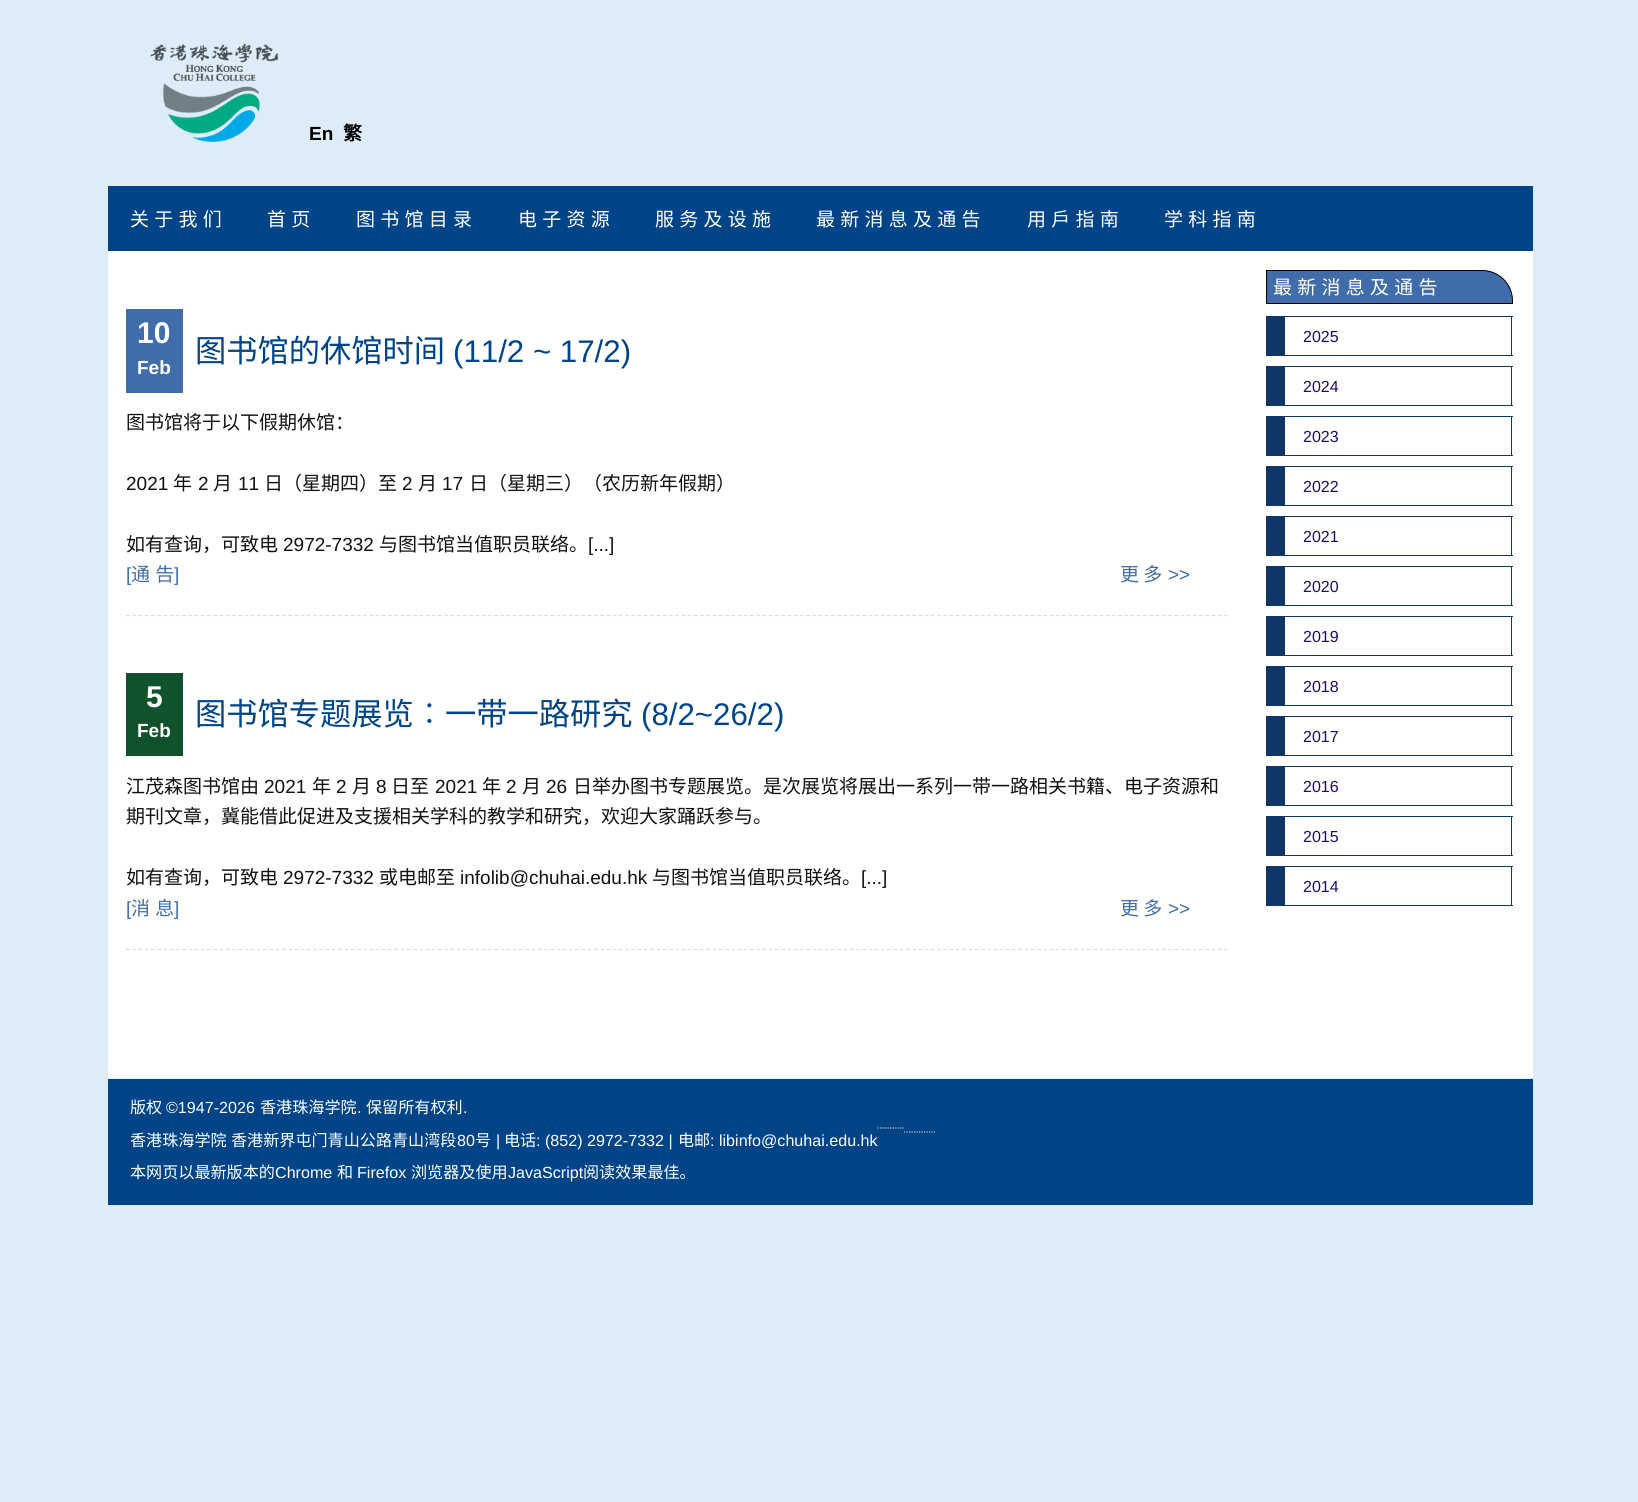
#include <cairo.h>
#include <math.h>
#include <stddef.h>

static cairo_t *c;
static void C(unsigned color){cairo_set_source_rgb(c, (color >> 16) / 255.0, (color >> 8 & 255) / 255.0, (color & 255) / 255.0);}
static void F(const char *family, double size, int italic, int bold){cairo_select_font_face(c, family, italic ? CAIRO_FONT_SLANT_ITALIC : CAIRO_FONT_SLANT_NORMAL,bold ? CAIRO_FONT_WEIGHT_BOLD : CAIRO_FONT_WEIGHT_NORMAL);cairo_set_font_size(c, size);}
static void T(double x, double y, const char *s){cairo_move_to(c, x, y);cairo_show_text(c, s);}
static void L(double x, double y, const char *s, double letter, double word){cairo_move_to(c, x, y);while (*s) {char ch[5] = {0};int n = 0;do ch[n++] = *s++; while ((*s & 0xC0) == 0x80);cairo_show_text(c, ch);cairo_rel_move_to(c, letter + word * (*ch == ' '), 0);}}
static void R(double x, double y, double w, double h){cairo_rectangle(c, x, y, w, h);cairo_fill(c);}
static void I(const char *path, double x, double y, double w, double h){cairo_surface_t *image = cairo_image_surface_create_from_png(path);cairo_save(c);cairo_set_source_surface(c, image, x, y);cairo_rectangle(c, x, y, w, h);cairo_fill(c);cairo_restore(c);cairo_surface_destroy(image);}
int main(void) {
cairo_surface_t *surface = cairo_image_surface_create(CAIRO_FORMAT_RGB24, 1638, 1502);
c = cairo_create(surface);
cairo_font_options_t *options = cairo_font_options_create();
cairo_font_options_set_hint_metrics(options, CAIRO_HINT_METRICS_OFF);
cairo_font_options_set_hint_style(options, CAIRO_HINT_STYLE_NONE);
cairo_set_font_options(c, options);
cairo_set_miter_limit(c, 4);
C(0xdeecf7);
cairo_paint(c);
I("1.png",150,43,129,99);
F("Liberation Sans",19,0,1);
C(0x000000);
T(309,140,"En");
F("Noto Sans CJK SC",19,0,1);
T(343,140,"繁");
C(0x004488);
R(108,186,1425,65);
F("Noto Sans CJK SC",19,0,0);
C(0xffffff);
L(130,226,"关 于 我 们",0,1);
L(267,226,"首 页",0,1);
L(356,226,"图 书 馆 目 录",0,1);
L(518,226,"电 子 资 源",0,1);
L(655,226,"服 务 及 设 施",0,1);
L(816,226,"最 新 消 息 及 通 告",0,1);
L(1027,226,"用 戶 指 南",0,1);
L(1164,226,"学 科 指 南",0,1);
R(108,251,1425,827);
C(0x406daa);
R(126,309,57,84);
F("Liberation Sans",30,0,1);
C(0xffffff);
T(137,343,"10");
F("Liberation Sans",19,0,1);
T(137,374,"Feb");
F("Noto Sans CJK SC",31.25,0,0);
C(0x004488);
T(195,362,"图书馆的休馆时间");
F("Liberation Sans",31.25,0,0);
T(453,362,"(11/2 ~ 17/2)");
F("Noto Sans CJK SC",19,0,0);
C(0x111111);
T(126,429,"图书馆将于以下假期休馆：");
F("Liberation Sans",19,0,0);
T(126,490,"2021");
F("Noto Sans CJK SC",19,0,0);
T(173,490,"年");
F("Liberation Sans",19,0,0);
T(198,490,"2");
F("Noto Sans CJK SC",19,0,0);
T(213,490,"月");
F("Liberation Sans",19,0,0);
T(238,490,"11");
F("Noto Sans CJK SC",19,0,0);
T(264,490,"日（星期四）至");
F("Liberation Sans",19,0,0);
T(402,490,"2");
F("Noto Sans CJK SC",19,0,0);
T(418,490,"月");
F("Liberation Sans",19,0,0);
T(442,490,"17");
F("Noto Sans CJK SC",19,0,0);
T(469,490,"日（星期三）（农历新年假期）");
T(126,551,"如有查询，可致电");
F("Liberation Sans",19,0,0);
T(283,551,"2972-7332");
F("Noto Sans CJK SC",19,0,0);
T(379,551,"与图书馆当值职员联络。");
F("Liberation Sans",19,0,0);
T(588,551,"[...]");
C(0x406daa);
T(126,581,"[");
F("Noto Sans CJK SC",19,0,0);
L(131,581,"通 告",0,1);
F("Liberation Sans",19,0,0);
T(174,581,"]");
F("Noto Sans CJK SC",19,0,0);
T(1120,581,"更 多");
F("Liberation Sans",19,0,0);
T(1168,581,">>");
cairo_new_path(c);
cairo_move_to(c,126,615.5);
cairo_line_to(c,1227.5,615.5);
C(0xdedede);
cairo_set_line_width(c,1.2);
cairo_set_dash(c,(double[]){3.75,2.49},2,0);
cairo_stroke(c);
C(0x10522b);
R(126,673,57,83);
F("Liberation Sans",30,0,1);
C(0xffffff);
T(146,707,"5");
F("Liberation Sans",19,0,1);
T(137,737,"Feb");
F("Noto Sans CJK SC",31.25,0,0);
C(0x004488);
T(195,725,"图书馆专题展览︰一带一路研究");
F("Liberation Sans",31.25,0,0);
T(641,725,"(8/2~26/2)");
F("Noto Sans CJK SC",19,0,0);
C(0x111111);
T(126,793,"江茂森图书馆由");
F("Liberation Sans",19,0,0);
T(264,793,"2021");
F("Noto Sans CJK SC",19,0,0);
T(312,793,"年");
F("Liberation Sans",19,0,0);
T(336,793,"2");
F("Noto Sans CJK SC",19,0,0);
T(352,793,"月");
F("Liberation Sans",19,0,0);
T(376,793,"8");
F("Noto Sans CJK SC",19,0,0);
T(391,793,"日至");
F("Liberation Sans",19,0,0);
T(435,793,"2021");
F("Noto Sans CJK SC",19,0,0);
T(482,793,"年");
F("Liberation Sans",19,0,0);
T(506,793,"2");
F("Noto Sans CJK SC",19,0,0);
T(522,793,"月");
F("Liberation Sans",19,0,0);
T(546,793,"26");
F("Noto Sans CJK SC",19,0,0);
T(573,793,"日举办图书专题展览。是次展览将展出一系列一带一路相关书籍、电子资源和");
T(126,823,"期刊文章，冀能借此促进及支援相关学科的教学和研究，欢迎大家踊跃参与。");
T(126,884,"如有查询，可致电");
F("Liberation Sans",19,0,0);
T(283,884,"2972-7332");
F("Noto Sans CJK SC",19,0,0);
T(379,884,"或电邮至");
F("Liberation Sans",19,0,0);
T(460,884,"infolib@chuhai.edu.hk");
F("Noto Sans CJK SC",19,0,0);
T(652,884,"与图书馆当值职员联络。");
F("Liberation Sans",19,0,0);
T(861,884,"[...]");
C(0x406daa);
T(126,915,"[");
F("Noto Sans CJK SC",19,0,0);
L(131,915,"消 息",0,1);
F("Liberation Sans",19,0,0);
T(174,915,"]");
F("Noto Sans CJK SC",19,0,0);
T(1120,915,"更 多");
F("Liberation Sans",19,0,0);
T(1168,915,">>");
cairo_new_path(c);
cairo_move_to(c,126,949.5);
cairo_line_to(c,1227.5,949.5);
C(0xdedede);
cairo_stroke(c);
C(0x406daa);
cairo_new_path(c);
cairo_move_to(c,1266.5,270.5);
cairo_line_to(c,1482,270.5);
cairo_curve_to(c,1499,270.5,1512.5,284,1512.5,301);
cairo_line_to(c,1512.5,303.5);
cairo_line_to(c,1266.5,303.5);
cairo_close_path(c);
cairo_fill_preserve(c);
C(0x000000);
cairo_set_line_width(c,1);
cairo_set_dash(c,NULL,0,0);
cairo_stroke(c);
F("Noto Sans CJK SC",19,0,0);
C(0xffffff);
L(1273,294,"最 新 消 息 及 通 告",0,1);
C(0x103569);
R(1285,316,228,1);
R(1511,316,1,40);
R(1285,355,228,1);
R(1266,316,19,40);
F("Liberation Sans",16,0,0);
C(0x210b61);
T(1303,342,"2025");
C(0x103569);
R(1285,366,228,1);
R(1511,366,1,40);
R(1285,405,228,1);
R(1266,366,19,40);
C(0x210b61);
T(1303,392,"2024");
C(0x103569);
R(1285,416,228,1);
R(1511,416,1,40);
R(1285,455,228,1);
R(1266,416,19,40);
C(0x210b61);
T(1303,442,"2023");
C(0x103569);
R(1285,466,228,1);
R(1511,466,1,40);
R(1285,505,228,1);
R(1266,466,19,40);
C(0x210b61);
T(1303,492,"2022");
C(0x103569);
R(1285,516,228,1);
R(1511,516,1,40);
R(1285,555,228,1);
R(1266,516,19,40);
C(0x210b61);
T(1303,542,"2021");
C(0x103569);
R(1285,566,228,1);
R(1511,566,1,40);
R(1285,605,228,1);
R(1266,566,19,40);
C(0x210b61);
T(1303,592,"2020");
C(0x103569);
R(1285,616,228,1);
R(1511,616,1,40);
R(1285,655,228,1);
R(1266,616,19,40);
C(0x210b61);
T(1303,642,"2019");
C(0x103569);
R(1285,666,228,1);
R(1511,666,1,40);
R(1285,705,228,1);
R(1266,666,19,40);
C(0x210b61);
T(1303,692,"2018");
C(0x103569);
R(1285,716,228,1);
R(1511,716,1,40);
R(1285,755,228,1);
R(1266,716,19,40);
C(0x210b61);
T(1303,742,"2017");
C(0x103569);
R(1285,766,228,1);
R(1511,766,1,40);
R(1285,805,228,1);
R(1266,766,19,40);
C(0x210b61);
T(1303,792,"2016");
C(0x103569);
R(1285,816,228,1);
R(1511,816,1,40);
R(1285,855,228,1);
R(1266,816,19,40);
C(0x210b61);
T(1303,842,"2015");
C(0x103569);
R(1285,866,228,1);
R(1511,866,1,40);
R(1285,905,228,1);
R(1266,866,19,40);
C(0x210b61);
T(1303,892,"2014");
C(0x004488);
R(108,1079,1425,126);
F("Noto Sans CJK SC",16.1,0,0);
C(0xffffff);
T(130,1113,"版权");
F("Liberation Sans",16.1,0,0);
T(166,1113,"©1947-2026");
F("Noto Sans CJK SC",16.1,0,0);
T(260,1113,"香港珠海学院");
F("Liberation Sans",16.1,0,0);
T(357,1113,".");
F("Noto Sans CJK SC",16.1,0,0);
T(366,1113,"保留所有权利");
F("Liberation Sans",16.1,0,0);
T(463,1113,".");
F("Noto Sans CJK SC",16.1,0,0);
T(130,1146,"香港珠海学院");
T(231,1146,"香港新界屯门青山公路青山湾段");
F("Liberation Sans",16.1,0,0);
T(457,1146,"80");
F("Noto Sans CJK SC",16.1,0,0);
T(475,1146,"号");
F("Liberation Sans",16.1,0,0);
T(496,1146,"|");
F("Noto Sans CJK SC",16.1,0,0);
T(504,1146,"电话");
F("Liberation Sans",16.1,0,0);
T(536,1146,": (852) 2972-7332 |");
F("Noto Sans CJK SC",16.1,0,0);
T(678,1146,"电邮");
F("Liberation Sans",16.1,0,0);
T(710,1146,": libinfo@chuhai.edu.hk");
F("Noto Sans CJK SC",16.1,0,0);
T(130,1178,"本网页以最新版本的");
F("Liberation Sans",16.1,0,0);
T(275,1178,"Chrome");
F("Noto Sans CJK SC",16.1,0,0);
T(337,1178,"和");
F("Liberation Sans",16.1,0,0);
T(357,1178,"Firefox");
F("Noto Sans CJK SC",16.1,0,0);
T(411,1178,"浏览器及使用");
F("Liberation Sans",16.1,0,0);
T(508,1178,"JavaScript");
F("Noto Sans CJK SC",16.1,0,0);
T(583,1178,"阅读效果最佳。");
cairo_new_path(c);
cairo_move_to(c,877.5,1128);
cairo_line_to(c,904,1128);
C(0xcccccc);
cairo_set_line_width(c,1.2);
cairo_set_dash(c,(double[]){1.25,1.25},2,0);
cairo_stroke(c);
cairo_new_path(c);
cairo_move_to(c,904,1132);
cairo_line_to(c,905,1132);
cairo_move_to(c,906.5,1132);
cairo_line_to(c,907.5,1132);
cairo_set_dash(c,NULL,0,0);
cairo_stroke(c);
cairo_new_path(c);
cairo_move_to(c,909,1132);
cairo_line_to(c,935,1132);
cairo_set_dash(c,(double[]){1.25,1.25},2,0);
cairo_stroke(c);
cairo_surface_write_to_png(surface, "o.png");
cairo_font_options_destroy(options);
cairo_destroy(c);
cairo_surface_destroy(surface);
return 0;
}
